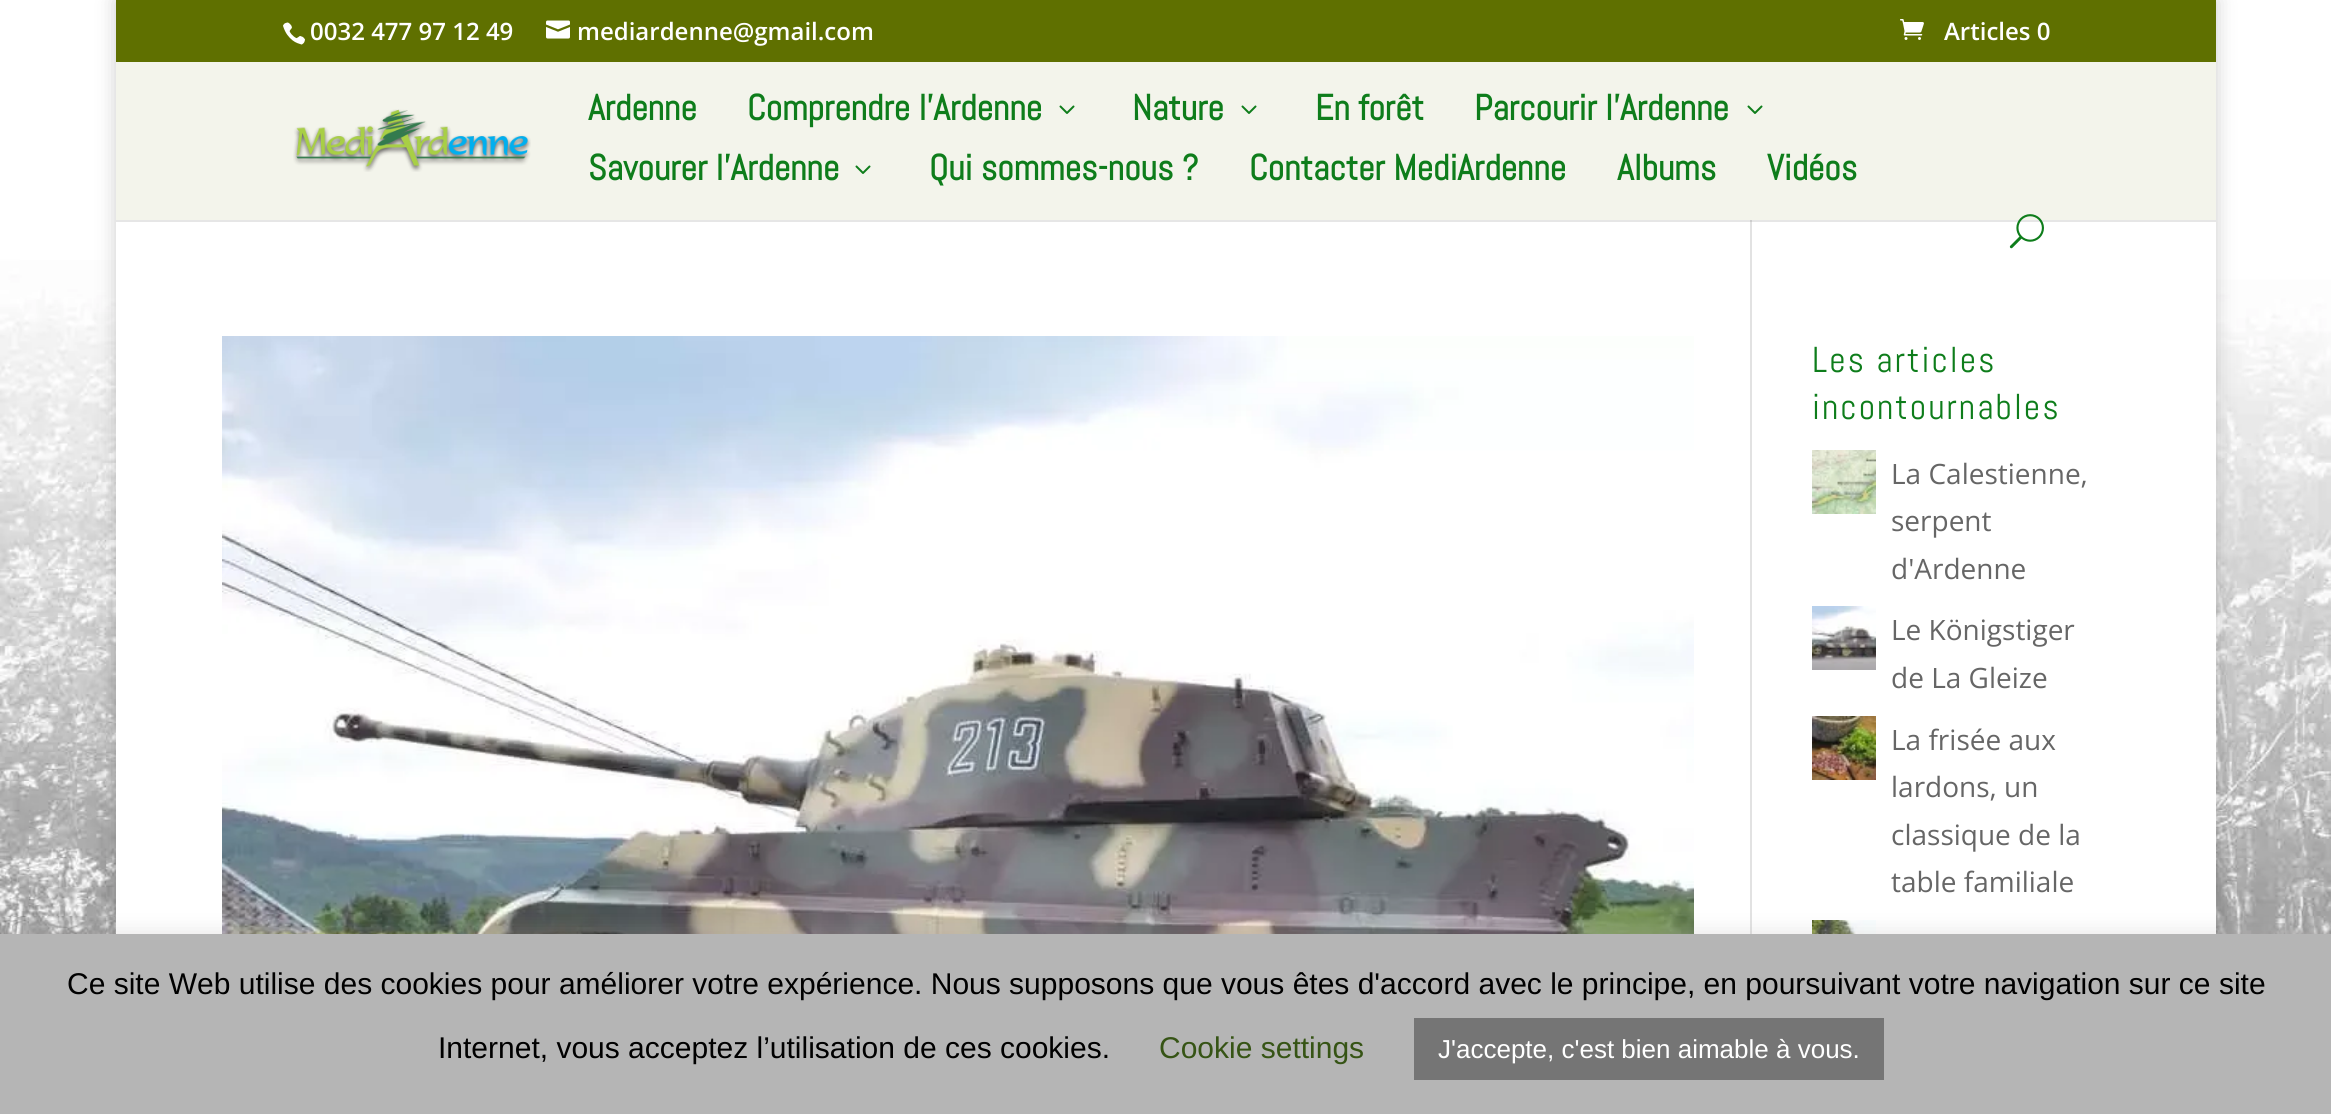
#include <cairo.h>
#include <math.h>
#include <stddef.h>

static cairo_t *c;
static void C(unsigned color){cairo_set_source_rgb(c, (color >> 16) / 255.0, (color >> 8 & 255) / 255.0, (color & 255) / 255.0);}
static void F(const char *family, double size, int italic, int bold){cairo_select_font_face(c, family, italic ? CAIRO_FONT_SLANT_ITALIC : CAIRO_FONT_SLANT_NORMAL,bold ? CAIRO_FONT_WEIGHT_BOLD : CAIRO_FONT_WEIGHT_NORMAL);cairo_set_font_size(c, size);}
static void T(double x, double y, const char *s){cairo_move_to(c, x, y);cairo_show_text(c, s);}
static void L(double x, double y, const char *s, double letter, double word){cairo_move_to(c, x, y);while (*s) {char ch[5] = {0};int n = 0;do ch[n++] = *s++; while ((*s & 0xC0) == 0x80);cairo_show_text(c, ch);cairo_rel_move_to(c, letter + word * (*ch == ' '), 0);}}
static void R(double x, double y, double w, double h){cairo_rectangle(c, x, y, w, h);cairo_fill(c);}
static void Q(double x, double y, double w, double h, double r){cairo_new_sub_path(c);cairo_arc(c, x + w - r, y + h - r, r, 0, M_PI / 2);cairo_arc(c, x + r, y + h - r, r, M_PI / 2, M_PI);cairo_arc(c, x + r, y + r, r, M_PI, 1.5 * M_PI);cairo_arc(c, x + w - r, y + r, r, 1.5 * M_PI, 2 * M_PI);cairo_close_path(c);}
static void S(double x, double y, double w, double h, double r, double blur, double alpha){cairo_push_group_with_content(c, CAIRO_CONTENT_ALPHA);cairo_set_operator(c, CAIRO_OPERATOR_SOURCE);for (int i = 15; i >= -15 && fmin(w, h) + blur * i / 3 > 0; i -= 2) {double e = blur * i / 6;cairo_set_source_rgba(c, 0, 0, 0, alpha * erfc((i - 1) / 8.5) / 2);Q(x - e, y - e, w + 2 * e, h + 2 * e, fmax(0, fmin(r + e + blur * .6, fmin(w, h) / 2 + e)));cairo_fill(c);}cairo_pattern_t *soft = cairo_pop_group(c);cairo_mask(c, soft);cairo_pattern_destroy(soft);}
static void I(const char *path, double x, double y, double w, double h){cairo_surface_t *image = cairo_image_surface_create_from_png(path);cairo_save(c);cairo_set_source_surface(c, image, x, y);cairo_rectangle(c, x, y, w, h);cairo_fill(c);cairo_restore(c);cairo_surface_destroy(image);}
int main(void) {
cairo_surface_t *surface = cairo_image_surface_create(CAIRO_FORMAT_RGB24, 2331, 1114);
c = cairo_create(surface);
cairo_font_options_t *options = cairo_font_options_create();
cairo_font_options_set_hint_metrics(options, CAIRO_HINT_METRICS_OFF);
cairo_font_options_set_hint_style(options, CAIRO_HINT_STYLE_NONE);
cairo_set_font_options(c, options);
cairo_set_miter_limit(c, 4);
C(0xffffff);
cairo_paint(c);
I("1.png",0,0,2331,934);
C(0x000000);
S(116,0,2100,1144,0,10,.2);
C(0x5f7000);
R(116,0,2100,62);
I("2.png",283,22,22,23);
F("Open Sans SemiBold",24,0,0);
C(0xffffff);
T(310,40,"0032 477 97 12 49");
I("3.png",546,20,24,19);
T(577,40,"mediardenne@gmail.com");
I("4.png",1900,19,24,21);
T(1944,40,"Articles 0");
R(116,220,2100,714);
C(0xe2e2e2);
R(1750,220,2,714);
cairo_set_source_rgba(c,0,0,0,0.1);
R(116,220,2100,2);
C(0xf3f4eb);
R(116,62,2100,158);
I("5.png",293,109,238,63);
F("Abel",36,0,1);
C(0x0e7d1b);
T(588,120,"Ardenne");
T(747,120,"Comprendre l’Ardenne");
I("6.png",1059,105,16,9);
T(1132,120,"Nature");
I("6.png",1241,105,16,9);
T(1315,120,"En forêt");
T(1474,120,"Parcourir l’Ardenne");
I("6.png",1747,105,16,9);
T(588,180,"Savourer l’Ardenne");
I("6.png",855,165,16,9);
T(929,180,"Qui sommes-nous ?");
T(1249,180,"Contacter MediArdenne");
T(1617,180,"Albums");
T(1767,180,"Vidéos");
I("7.png",2009,214,35,35);
I("8.png",222,336,1472,598);
F("Abel",36,0,0);
L(1812,372,"Les articles",2,0);
L(1812,419,"incontournables",2,0);
I("9.png",1812,450,64,64);
F("Open Sans",28,0,0);
C(0x666666);
T(1891,484,"La Calestienne,");
T(1891,531,"serpent");
T(1891,579,"d'Ardenne");
I("10.png",1812,606,64,64);
T(1891,640,"Le Königstiger");
T(1891,688,"de La Gleize");
I("11.png",1812,716,64,64);
T(1891,750,"La frisée aux");
T(1891,797,"lardons, un");
T(1891,845,"classique de la");
T(1891,892,"table familiale");
I("12.png",1812,920,64,14);
C(0xacabab);
S(0,932,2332,180,0,10,.3);
C(0xb5b5b5);
R(0,934,2331,180);
F("Liberation Sans",30,0,0);
C(0x000000);
T(67,994,"Ce site Web utilise des cookies pour améliorer votre expérience. Nous supposons que vous êtes d'accord avec le principe, en poursuivant votre navigation sur ce site");
T(438,1058,"Internet, vous acceptez l’utilisation de ces cookies.");
C(0x365415);
T(1159,1058,"Cookie settings");
C(0x757575);
R(1414,1018,470,62);
F("Liberation Sans",26,0,0);
C(0xffffff);
T(1438,1058,"J'accepte, c'est bien aimable à vous.");
cairo_surface_write_to_png(surface, "o.png");
cairo_font_options_destroy(options);
cairo_destroy(c);
cairo_surface_destroy(surface);
return 0;
}
